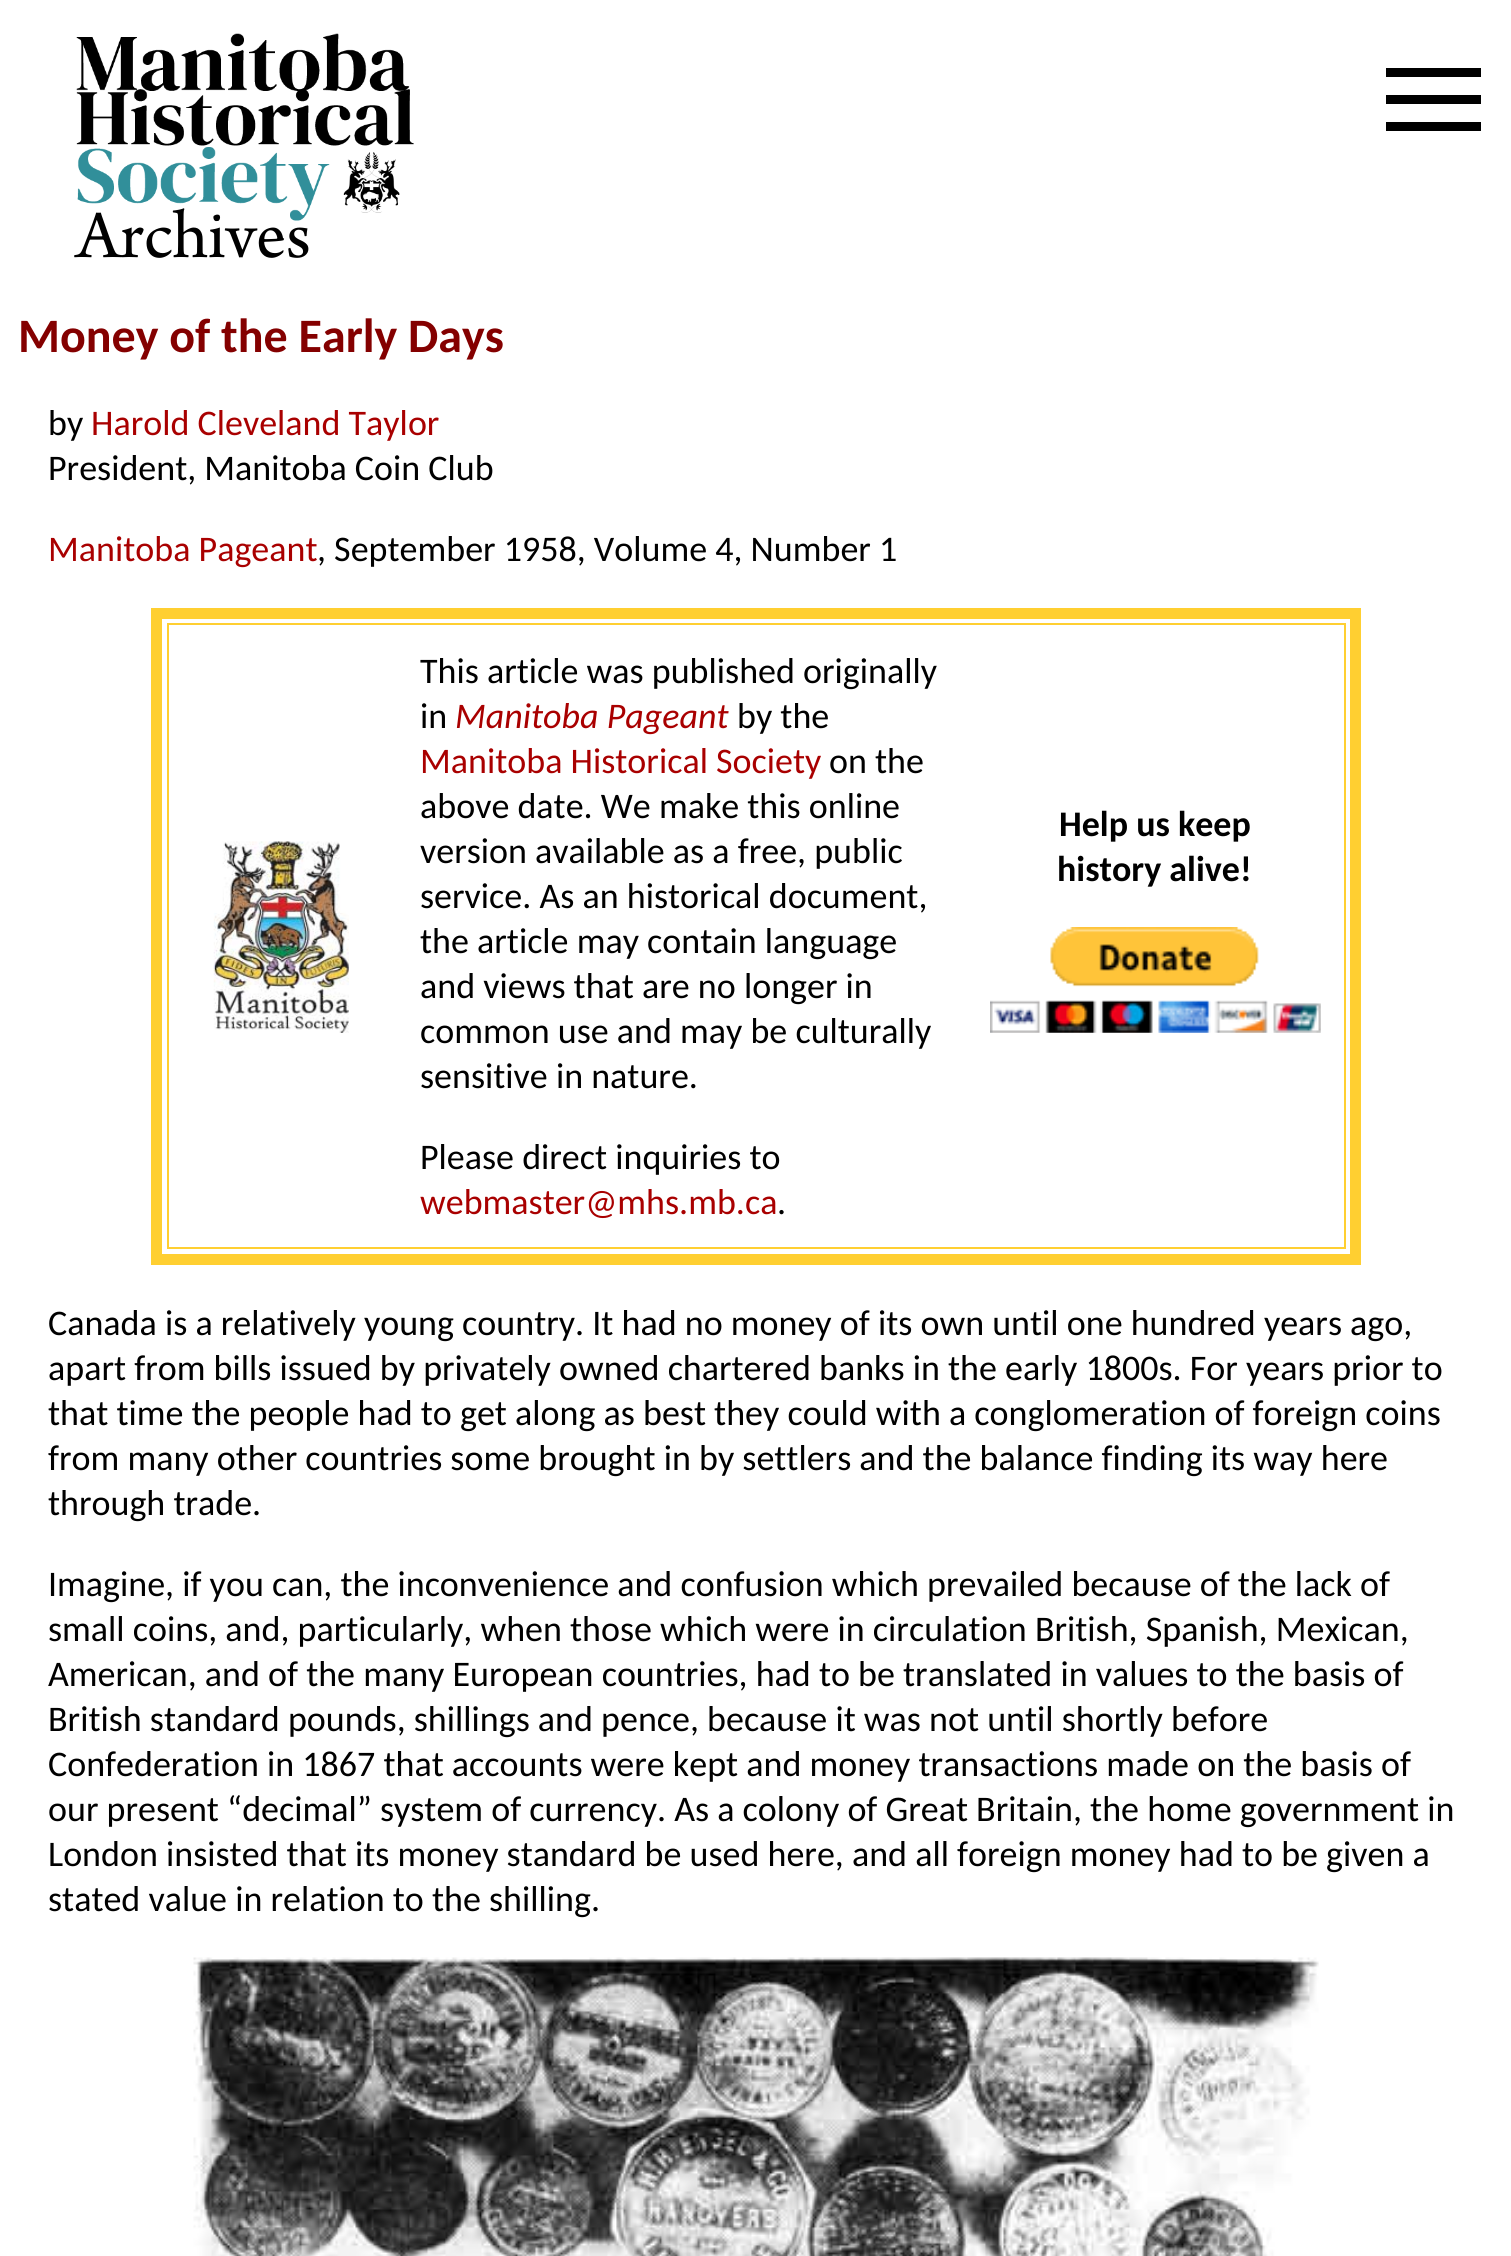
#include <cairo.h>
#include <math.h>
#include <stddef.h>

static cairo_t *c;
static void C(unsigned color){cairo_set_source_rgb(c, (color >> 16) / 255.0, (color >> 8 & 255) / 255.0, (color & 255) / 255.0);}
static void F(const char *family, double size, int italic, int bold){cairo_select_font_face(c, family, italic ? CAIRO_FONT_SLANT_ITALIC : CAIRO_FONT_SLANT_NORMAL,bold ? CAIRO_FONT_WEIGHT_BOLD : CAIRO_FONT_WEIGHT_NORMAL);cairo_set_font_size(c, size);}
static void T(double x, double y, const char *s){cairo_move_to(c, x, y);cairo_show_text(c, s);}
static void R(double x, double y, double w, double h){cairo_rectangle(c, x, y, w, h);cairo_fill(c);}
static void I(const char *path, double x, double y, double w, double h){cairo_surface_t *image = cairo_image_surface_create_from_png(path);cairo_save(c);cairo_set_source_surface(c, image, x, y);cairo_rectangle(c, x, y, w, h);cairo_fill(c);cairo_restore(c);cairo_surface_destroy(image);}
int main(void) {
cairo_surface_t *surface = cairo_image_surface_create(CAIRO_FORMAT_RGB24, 1511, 2256);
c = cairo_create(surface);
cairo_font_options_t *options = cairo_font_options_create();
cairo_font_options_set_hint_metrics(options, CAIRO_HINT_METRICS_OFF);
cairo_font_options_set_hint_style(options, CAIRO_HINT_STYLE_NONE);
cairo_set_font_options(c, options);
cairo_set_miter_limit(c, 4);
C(0xffffff);
cairo_paint(c);
C(0x000000);
R(1386,95,95,9);
R(1386,68,95,9);
R(1386,122,95,9);
I("1.png",76,33,338,188);
F("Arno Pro",72,0,0);
T(76,257,"Archives");
F("Carlito",48,0,1);
C(0x840000);
T(18,352,"Money of the Early Days");
F("Carlito",36,0,0);
C(0x000000);
T(48,435,"by");
C(0xa90000);
T(91,435,"Harold Cleveland Taylor");
C(0x000000);
T(48,480,"President, Manitoba Coin Club");
C(0xa90000);
T(48,561,"Manitoba Pageant");
C(0x000000);
T(317,561,", September 1958, Volume 4, Number 1");
cairo_rectangle(c,156.5,613.5,1199,646);
C(0xffcf31);
cairo_set_line_width(c,11);
cairo_stroke(c);
cairo_rectangle(c,168,624,1177,624);
cairo_set_line_width(c,2);
cairo_stroke(c);
I("2.png",213,841,136,192);
C(0x000000);
T(420,683,"This article was published originally");
T(420,728,"in");
F("Carlito",36,1,0);
C(0xa90000);
T(455,728,"Manitoba Pageant");
F("Carlito",36,0,0);
C(0x000000);
T(737,728,"by the");
C(0xa90000);
T(420,773,"Manitoba Historical Society");
C(0x000000);
T(829,773,"on the");
T(420,818,"above date. We make this online");
T(420,863,"version available as a free, public");
T(420,908,"service. As an historical document,");
T(420,953,"the article may contain language");
T(420,998,"and views that are no longer in");
T(420,1043,"common use and may be culturally");
T(420,1088,"sensitive in nature.");
T(420,1169,"Please direct inquiries to");
C(0xa90000);
T(420,1214,"webmaster@mhs.mb.ca");
C(0x000000);
T(777,1214,".");
F("Carlito",36,0,1);
T(1059,836,"Help us keep");
T(1057,881,"history alive!");
I("3.png",990,927,331,106);
F("Carlito",36,0,0);
T(48,1335,"Canada is a relatively young country. It had no money of its own until one hundred years ago,");
T(48,1380,"apart from bills issued by privately owned chartered banks in the early 1800s. For years prior to");
T(48,1425,"that time the people had to get along as best they could with a conglomeration of foreign coins");
T(48,1470,"from many other countries some brought in by settlers and the balance finding its way here");
T(48,1515,"through trade.");
T(48,1596,"Imagine, if you can, the inconvenience and confusion which prevailed because of the lack of");
T(48,1641,"small coins, and, particularly, when those which were in circulation British, Spanish, Mexican,");
T(48,1686,"American, and of the many European countries, had to be translated in values to the basis of");
T(48,1731,"British standard pounds, shillings and pence, because it was not until shortly before");
T(48,1776,"Confederation in 1867 that accounts were kept and money transactions made on the basis of");
T(48,1821,"our present “decimal” system of currency. As a colony of Great Britain, the home government in");
T(48,1866,"London insisted that its money standard be used here, and all foreign money had to be given a");
T(48,1911,"stated value in relation to the shilling.");
I("4.png",193,1957,1126,299);
cairo_surface_write_to_png(surface, "o.png");
cairo_font_options_destroy(options);
cairo_destroy(c);
cairo_surface_destroy(surface);
return 0;
}
